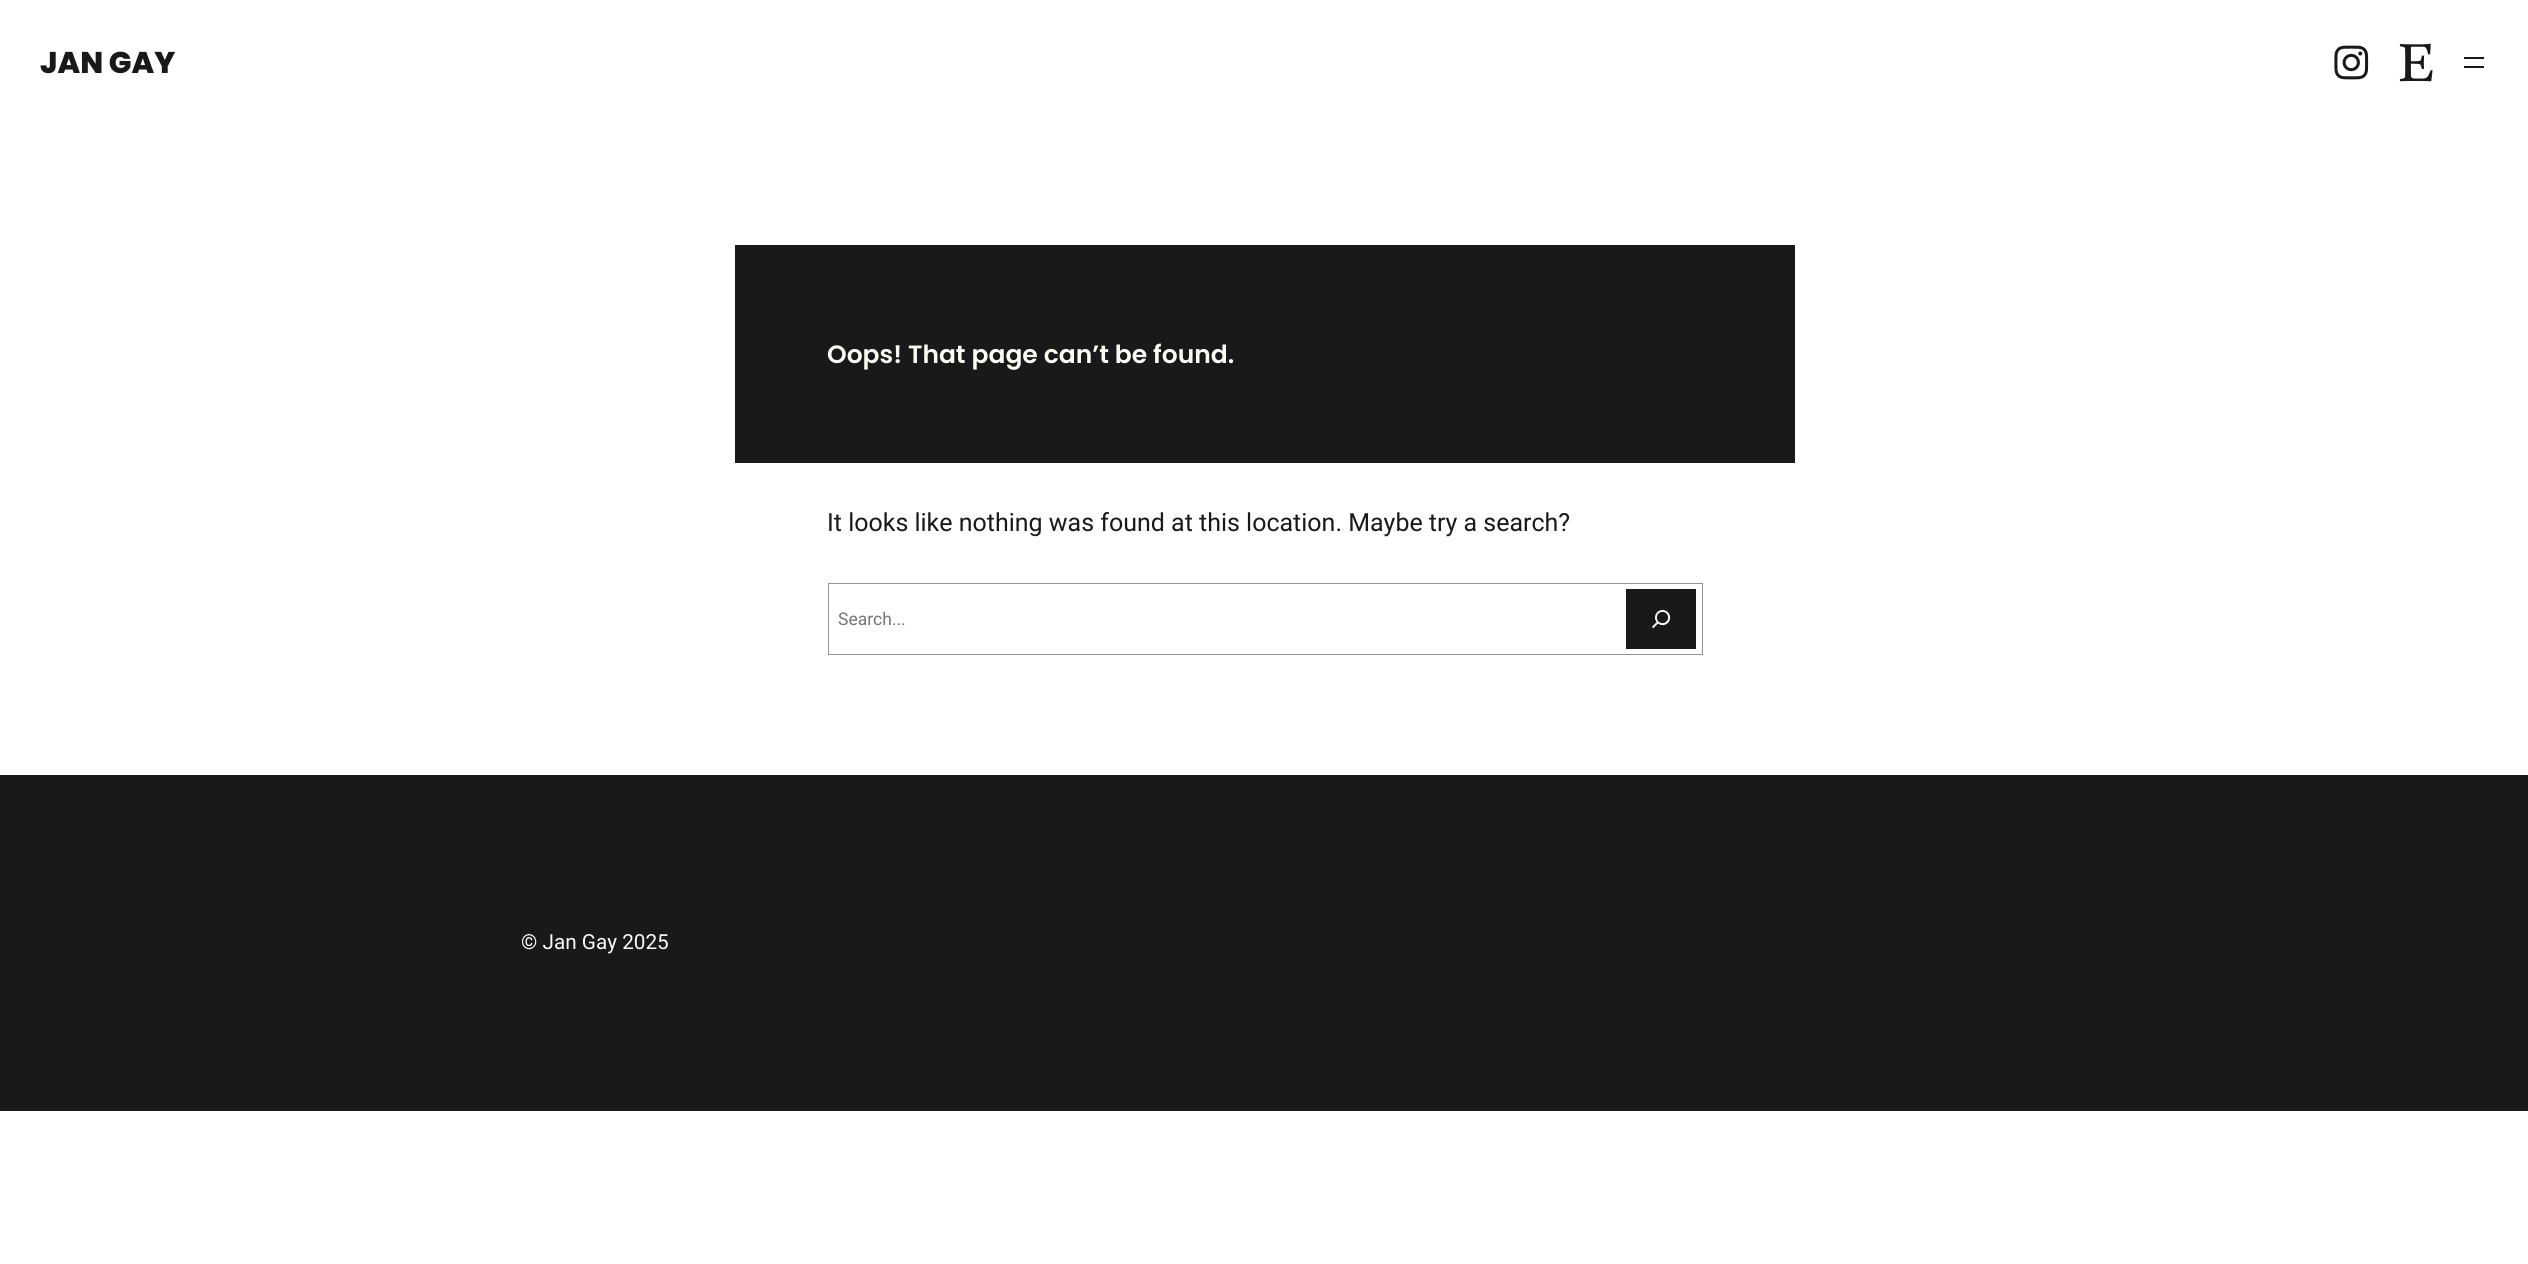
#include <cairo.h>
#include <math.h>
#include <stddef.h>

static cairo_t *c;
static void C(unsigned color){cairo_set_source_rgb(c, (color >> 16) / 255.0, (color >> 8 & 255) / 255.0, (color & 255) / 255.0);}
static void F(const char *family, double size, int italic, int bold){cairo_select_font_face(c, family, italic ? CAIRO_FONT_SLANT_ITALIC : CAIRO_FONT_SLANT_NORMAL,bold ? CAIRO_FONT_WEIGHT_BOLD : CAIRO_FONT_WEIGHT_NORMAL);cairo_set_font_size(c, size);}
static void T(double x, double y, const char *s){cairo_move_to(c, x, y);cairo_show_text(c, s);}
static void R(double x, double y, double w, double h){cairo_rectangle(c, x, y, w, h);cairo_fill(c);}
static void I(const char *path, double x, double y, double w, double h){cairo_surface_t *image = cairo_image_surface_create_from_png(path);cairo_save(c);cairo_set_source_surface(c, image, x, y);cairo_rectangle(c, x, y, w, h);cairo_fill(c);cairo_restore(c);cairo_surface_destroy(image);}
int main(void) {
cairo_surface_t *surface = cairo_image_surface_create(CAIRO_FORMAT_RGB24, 2528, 1264);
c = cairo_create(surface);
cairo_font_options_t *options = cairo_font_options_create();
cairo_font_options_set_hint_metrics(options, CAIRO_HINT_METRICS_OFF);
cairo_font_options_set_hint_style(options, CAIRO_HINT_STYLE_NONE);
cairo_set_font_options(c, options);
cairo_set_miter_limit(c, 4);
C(0xffffff);
cairo_paint(c);
F("Poppins ExtraBold",30,0,0);
C(0x191919);
T(40,73,"JAN GAY");
I("1.png",2334,45,35,35);
I("2.png",2399,43,34,39);
R(2464,57,20,2);
R(2464,66,20,2);
R(735,245,1060,218);
F("Poppins SemiBold",25,0,0);
C(0xfafbf3);
T(827,363,"Oops! That page can’t be found.");
F("Roboto",25,0,0);
C(0x191919);
T(827,531,"It looks like nothing was found at this location. Maybe try a search?");
cairo_rectangle(c,828.5,583.5,874,71);
C(0x949494);
cairo_set_line_width(c,1);
cairo_stroke(c);
F("Roboto",17.5,0,0);
C(0x757575);
T(838,625,"Search...");
C(0x191919);
R(1626,589,70,60);
I("3.png",1652,610,19,19);
R(0,775,2528,336);
F("Roboto",20.75,0,0);
C(0xfafbf3);
T(521,949,"© Jan Gay 2025");
cairo_surface_write_to_png(surface, "o.png");
cairo_font_options_destroy(options);
cairo_destroy(c);
cairo_surface_destroy(surface);
return 0;
}
